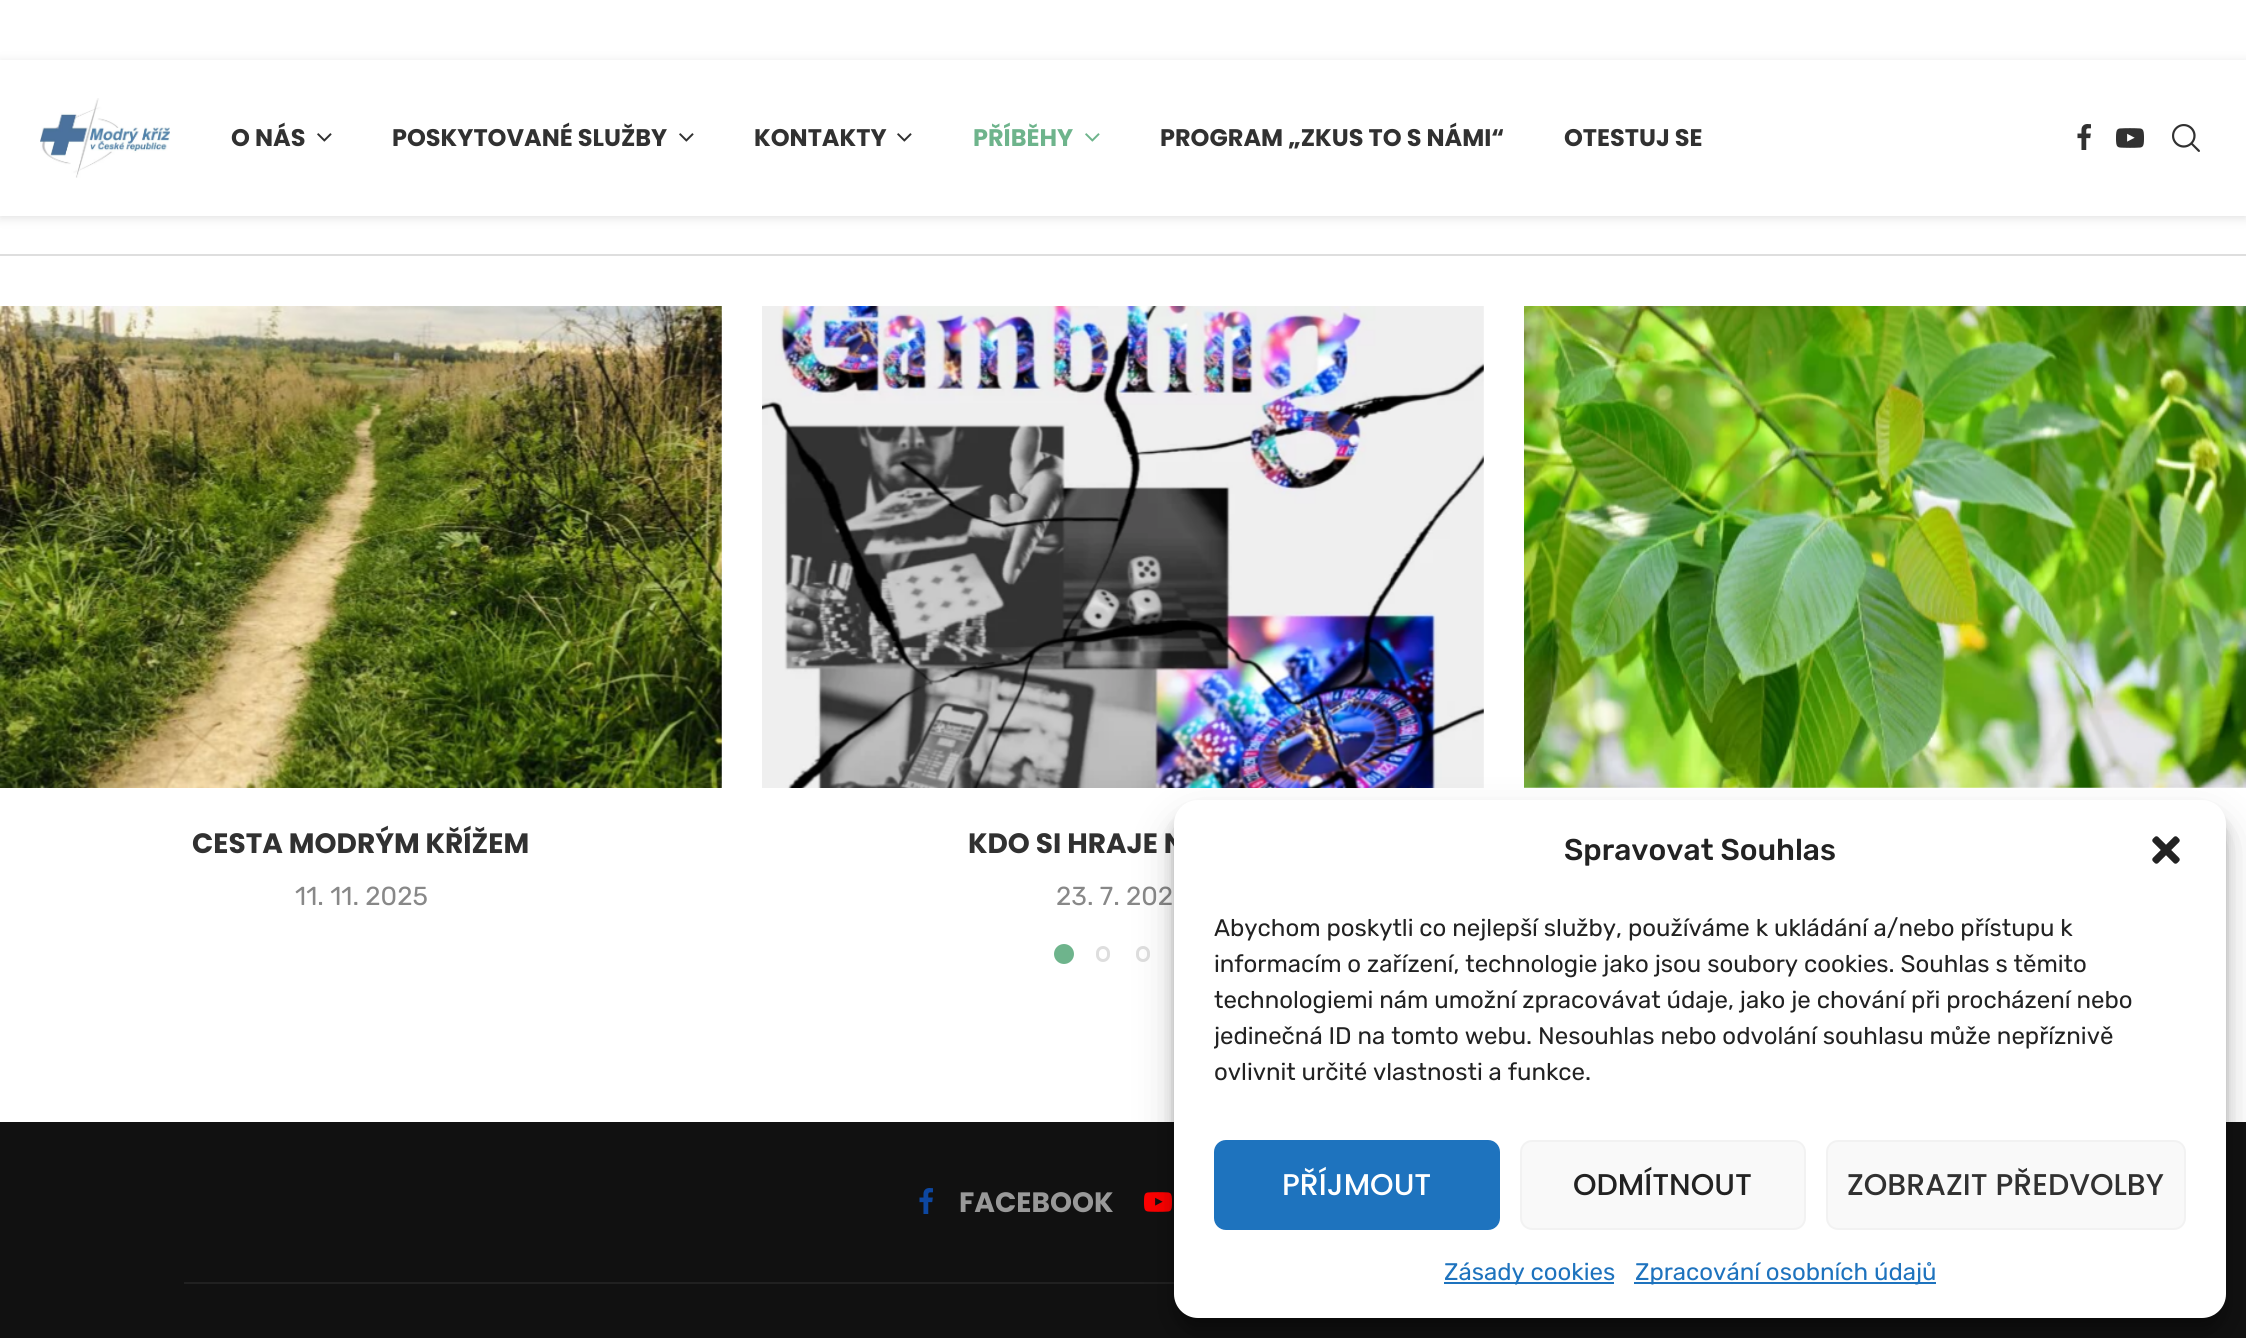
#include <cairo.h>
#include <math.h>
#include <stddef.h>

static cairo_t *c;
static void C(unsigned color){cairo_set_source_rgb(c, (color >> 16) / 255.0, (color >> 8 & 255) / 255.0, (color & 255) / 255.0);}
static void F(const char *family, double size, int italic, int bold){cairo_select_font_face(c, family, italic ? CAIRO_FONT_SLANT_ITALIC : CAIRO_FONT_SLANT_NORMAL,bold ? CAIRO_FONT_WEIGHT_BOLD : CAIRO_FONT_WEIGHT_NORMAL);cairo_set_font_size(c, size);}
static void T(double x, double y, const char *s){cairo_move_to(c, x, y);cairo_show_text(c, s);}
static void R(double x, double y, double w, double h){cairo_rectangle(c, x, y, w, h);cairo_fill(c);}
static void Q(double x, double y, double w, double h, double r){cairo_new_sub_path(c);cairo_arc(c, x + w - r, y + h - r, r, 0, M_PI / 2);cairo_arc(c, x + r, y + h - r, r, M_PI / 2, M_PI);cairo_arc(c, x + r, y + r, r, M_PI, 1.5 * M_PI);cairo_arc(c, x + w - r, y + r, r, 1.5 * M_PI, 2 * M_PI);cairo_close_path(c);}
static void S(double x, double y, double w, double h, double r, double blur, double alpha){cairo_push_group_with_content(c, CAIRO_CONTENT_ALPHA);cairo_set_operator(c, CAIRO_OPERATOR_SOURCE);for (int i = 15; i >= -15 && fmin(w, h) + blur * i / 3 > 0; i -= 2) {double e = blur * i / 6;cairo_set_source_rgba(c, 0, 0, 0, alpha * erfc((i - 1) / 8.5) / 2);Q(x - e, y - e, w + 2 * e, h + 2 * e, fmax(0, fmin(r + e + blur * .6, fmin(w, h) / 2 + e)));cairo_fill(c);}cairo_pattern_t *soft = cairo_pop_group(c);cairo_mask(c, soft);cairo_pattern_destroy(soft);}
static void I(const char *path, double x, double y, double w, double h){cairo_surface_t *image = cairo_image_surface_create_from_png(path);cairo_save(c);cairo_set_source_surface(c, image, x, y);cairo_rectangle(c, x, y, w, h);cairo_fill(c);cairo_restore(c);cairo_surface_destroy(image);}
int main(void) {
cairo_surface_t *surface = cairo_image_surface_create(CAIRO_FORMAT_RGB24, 2246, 1338);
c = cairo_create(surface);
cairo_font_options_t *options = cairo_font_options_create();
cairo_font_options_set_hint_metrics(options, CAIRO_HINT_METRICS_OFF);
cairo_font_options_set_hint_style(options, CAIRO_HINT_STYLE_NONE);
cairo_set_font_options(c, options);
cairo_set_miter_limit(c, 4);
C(0xffffff);
cairo_paint(c);
cairo_save(c);
cairo_set_fill_rule(c,CAIRO_FILL_RULE_EVEN_ODD);
cairo_new_path(c);
cairo_move_to(c,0,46);
cairo_line_to(c,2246,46);
cairo_line_to(c,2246,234);
cairo_line_to(c,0,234);
cairo_close_path(c);
cairo_move_to(c,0,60);
cairo_line_to(c,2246,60);
cairo_line_to(c,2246,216);
cairo_line_to(c,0,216);
cairo_close_path(c);
cairo_clip(c);
C(0xbebebe);
S(0,62,2246,156,0,5,.46);
cairo_restore(c);
I("1.png",40,98,130,80);
F("Poppins",24,0,1);
C(0x313131);
T(231,146,"O NÁS");
I("2.png",317,133,15,9);
T(392,146,"POSKYTOVANÉ SLUŽBY");
I("2.png",679,133,15,9);
T(754,146,"KONTAKTY");
I("2.png",897,133,15,9);
C(0x6eb48c);
T(973,146,"PŘÍBĚHY");
I("3.png",1085,133,15,9);
C(0x313131);
T(1160,146,"PROGRAM „ZKUS TO S NÁMI“");
T(1564,146,"OTESTUJ SE");
I("4.png",2077,124,14,26);
I("5.png",2116,128,28,20);
I("6.png",2172,124,28,28);
C(0xdedede);
R(0,254,2246,2);
I("7.png",1524,306,722,482);
I("8.png",0,306,722,482);
F("Poppins",28,0,1);
C(0x313131);
T(192,853,"CESTA MODRÝM KŘÍŽEM");
F("Rubik",26,0,0);
C(0x888888);
T(295,905,"11. 11. 2025");
I("9.png",762,306,722,482);
F("Poppins",28,0,1);
C(0x313131);
T(968,853,"KDO SI HRAJE N");
F("Rubik",26,0,0);
C(0x888888);
T(1056,905,"23. 7. 202");
C(0x6eb48c);
cairo_new_path(c);
cairo_arc(c,1064,954,8,0,2 * M_PI);
cairo_fill_preserve(c);
cairo_set_line_width(c,4);
cairo_stroke(c);
Q(1097.5,947.5,11,13,5.5);
C(0xdedede);
cairo_set_line_width(c,3);
cairo_stroke(c);
Q(1137.5,947.5,11,13,5.5);
cairo_stroke(c);
C(0x111111);
R(0,1122,2246,216);
C(0x212121);
R(184,1282,990,2);
I("10.png",919,1188,14,26);
F("Poppins",28,0,1);
C(0x999999);
T(959,1212,"FACEBOOK");
I("11.png",1144,1192,28,20);
C(0x000000);
S(1174,812,1052,518,24,6,.23);
S(1174,820,1052,518,24,20,.19);
C(0xffffff);
Q(1174,800,1052,518,24);
cairo_fill(c);
F("Rubik Medium",30,0,0);
C(0x222222);
T(1564,860,"Spravovat Souhlas");
I("12.png",2152,836,28,28);
F("Rubik",24,0,0);
T(1214,936,"Abychom poskytli co nejlepší služby, používáme k ukládání a/nebo přístupu k");
T(1214,972,"informacím o zařízení, technologie jako jsou soubory cookies. Souhlas s těmito");
T(1214,1008,"technologiemi nám umožní zpracovávat údaje, jako je chování při procházení nebo");
cairo_save(c);
cairo_rectangle(c,1214,910,972,190);
cairo_clip(c);
T(1214,1044,"jedinečná ID na tomto webu. Nesouhlas nebo odvolání souhlasu může nepříznivě");
cairo_restore(c);
T(1214,1080,"ovlivnit určité vlastnosti a funkce.");
C(0x1e73be);
Q(1215,1141,284,88,11);
cairo_fill_preserve(c);
cairo_set_line_width(c,2);
cairo_stroke(c);
F("Poppins Medium",30,0,0);
C(0xffffff);
T(1282,1195,"PŘÍJMOUT");
C(0xf9f9f9);
Q(1521,1141,284,88,11);
cairo_fill_preserve(c);
C(0xf2f2f2);
cairo_stroke(c);
C(0x222222);
T(1573,1195,"ODMÍTNOUT");
C(0xf9f9f9);
Q(1827,1141,358,88,11);
cairo_fill_preserve(c);
C(0xf2f2f2);
cairo_stroke(c);
C(0x313131);
T(1847,1195,"ZOBRAZIT PŘEDVOLBY");
C(0x1e73be);
R(1444,1282,170,2);
F("Rubik",24,0,0);
T(1444,1280,"Zásady cookies");
R(1634,1282,302,2);
T(1635,1280,"Zpracování osobních údajů");
cairo_surface_write_to_png(surface, "o.png");
cairo_font_options_destroy(options);
cairo_destroy(c);
cairo_surface_destroy(surface);
return 0;
}
